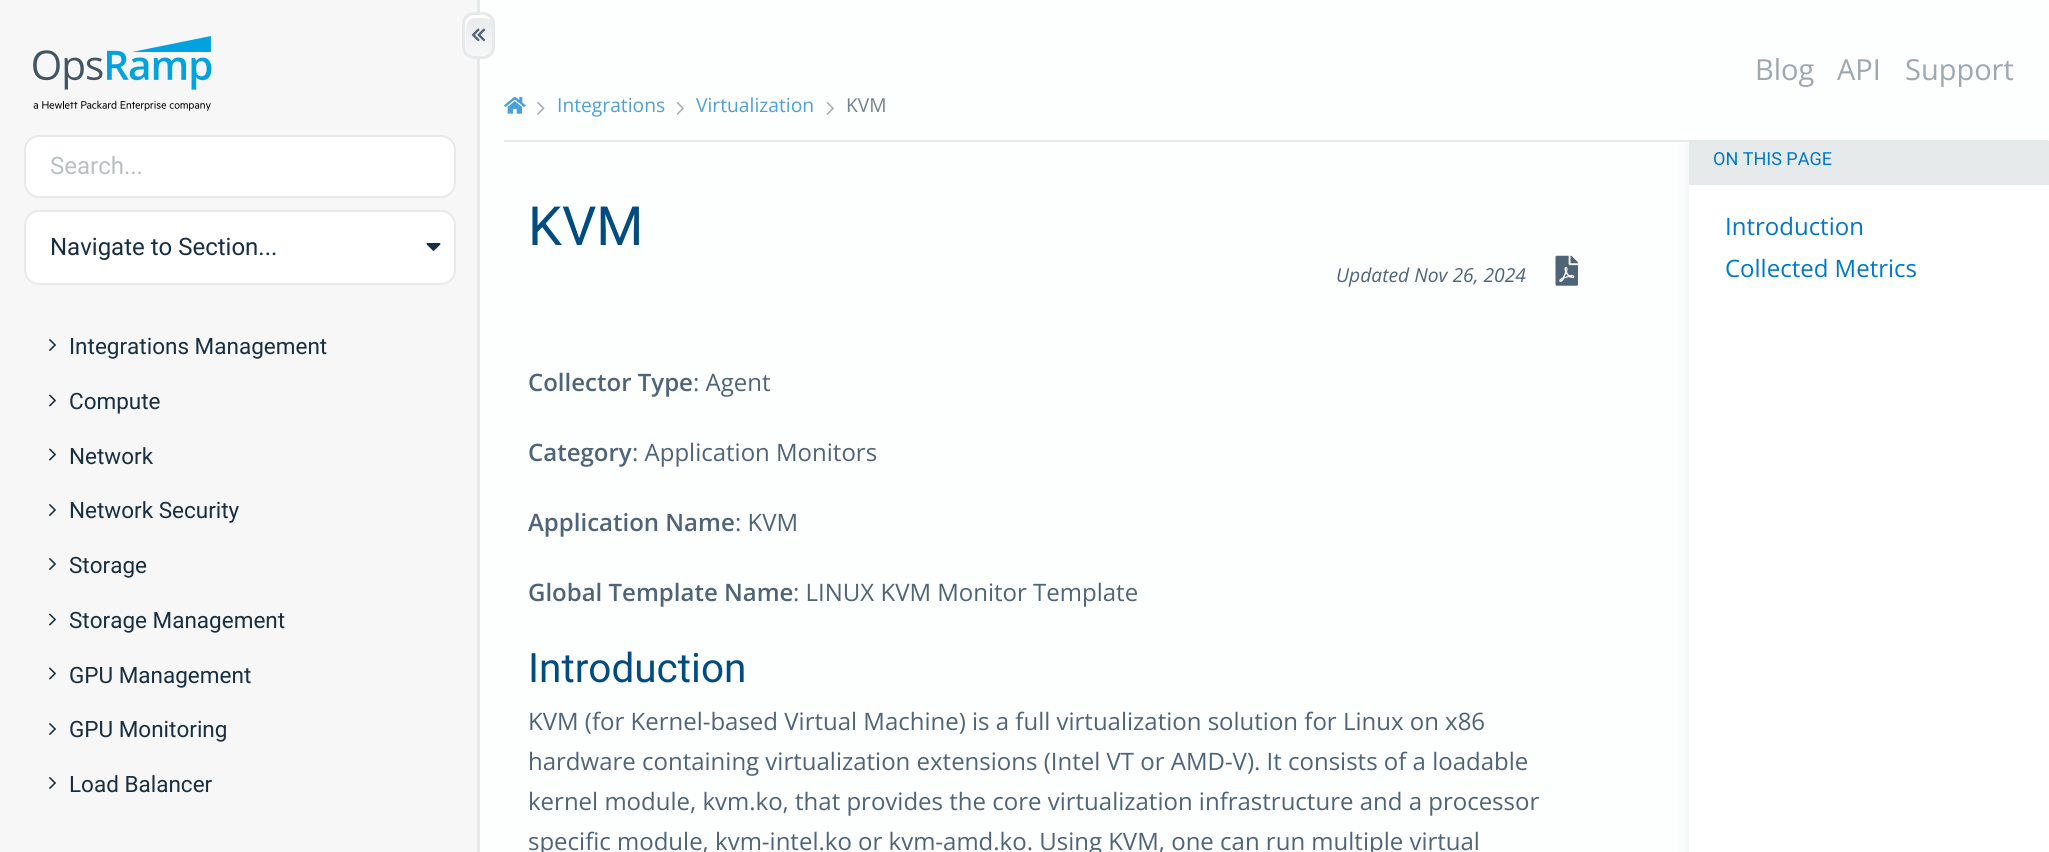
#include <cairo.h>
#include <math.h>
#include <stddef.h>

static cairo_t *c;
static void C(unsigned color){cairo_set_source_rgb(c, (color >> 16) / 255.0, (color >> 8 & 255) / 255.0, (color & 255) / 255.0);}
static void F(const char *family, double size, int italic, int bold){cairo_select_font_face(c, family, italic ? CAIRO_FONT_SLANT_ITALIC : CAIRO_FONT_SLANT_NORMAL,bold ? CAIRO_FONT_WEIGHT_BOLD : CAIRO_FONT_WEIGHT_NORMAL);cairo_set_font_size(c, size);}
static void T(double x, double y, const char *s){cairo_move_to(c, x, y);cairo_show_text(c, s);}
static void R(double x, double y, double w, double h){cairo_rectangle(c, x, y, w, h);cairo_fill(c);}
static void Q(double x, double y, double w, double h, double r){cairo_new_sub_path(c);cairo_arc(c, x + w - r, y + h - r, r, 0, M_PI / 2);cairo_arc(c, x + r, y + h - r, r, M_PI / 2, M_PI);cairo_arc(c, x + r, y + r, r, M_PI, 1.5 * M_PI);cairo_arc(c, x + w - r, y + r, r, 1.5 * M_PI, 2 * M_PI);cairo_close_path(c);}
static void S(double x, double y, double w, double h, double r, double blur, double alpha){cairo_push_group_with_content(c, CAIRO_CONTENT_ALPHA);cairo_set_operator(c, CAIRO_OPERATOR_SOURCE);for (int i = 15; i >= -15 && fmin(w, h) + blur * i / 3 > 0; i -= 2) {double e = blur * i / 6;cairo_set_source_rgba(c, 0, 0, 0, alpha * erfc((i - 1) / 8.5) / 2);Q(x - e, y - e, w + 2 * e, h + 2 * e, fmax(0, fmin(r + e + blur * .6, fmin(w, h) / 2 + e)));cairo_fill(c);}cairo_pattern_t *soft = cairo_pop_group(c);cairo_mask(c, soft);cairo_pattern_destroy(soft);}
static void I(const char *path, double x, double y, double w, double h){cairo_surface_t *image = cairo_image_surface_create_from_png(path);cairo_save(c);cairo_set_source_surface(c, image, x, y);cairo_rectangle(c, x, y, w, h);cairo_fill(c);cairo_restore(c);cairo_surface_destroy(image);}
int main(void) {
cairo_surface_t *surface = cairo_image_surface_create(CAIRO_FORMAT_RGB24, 2049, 852);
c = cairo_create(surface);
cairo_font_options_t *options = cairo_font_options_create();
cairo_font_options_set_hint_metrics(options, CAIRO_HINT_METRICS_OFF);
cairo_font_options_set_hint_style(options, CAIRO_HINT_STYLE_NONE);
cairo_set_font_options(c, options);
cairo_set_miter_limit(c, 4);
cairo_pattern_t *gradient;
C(0xfdfefe);
cairo_paint(c);
C(0xf7f7f8);
R(0,0,477,852);
C(0xe7eaeb);
R(477,0,3,852);
cairo_save(c);
Q(462,12,33,47,12);
cairo_clip(c);
gradient = cairo_pattern_create_linear(479,56,479,15);
cairo_pattern_add_color_stop_rgba(gradient,0,0.969,0.969,0.973,1);
cairo_pattern_add_color_stop_rgba(gradient,1,0.906,0.918,0.922,1);
cairo_set_source(c,gradient);
cairo_pattern_destroy(gradient);
R(462,15,33,41);
cairo_restore(c);
C(0xffffff);
cairo_new_path(c);
cairo_move_to(c,476,18);
cairo_curve_to(c,484.5,18,489,18,491,20.5);
cairo_curve_to(c,490,17,486.5,15,483,15);
cairo_line_to(c,474,15);
cairo_curve_to(c,469,15,465,19,465,24);
cairo_line_to(c,465,47);
cairo_curve_to(c,465,49,466,51,467,52.5);
cairo_curve_to(c,465.5,49.5,466,45,466,41);
cairo_line_to(c,466,35.5);
cairo_curve_to(c,465.5,28,465.5,18,476,18);
cairo_close_path(c);
cairo_fill(c);
Q(463.5,13.5,30,44,10.5);
C(0xe7eaeb);
cairo_set_line_width(c,3);
cairo_stroke(c);
I("1.png",471,28,15,14);
I("2.png",33,36,179,75);
C(0xffffff);
Q(25,136,430,61,14);
cairo_fill_preserve(c);
C(0xe7eaeb);
cairo_set_line_width(c,2);
cairo_stroke(c);
F("Roboto",24,0,0);
C(0xb9c0c5);
T(50,174,"Search...");
C(0xffffff);
Q(25,211,430,73,14);
cairo_fill_preserve(c);
C(0xe7eaeb);
cairo_stroke(c);
C(0x172f40);
T(50,255,"Navigate to Section...");
I("3.png",426,243,15,8);
I("4.png",49,339,7,12);
F("Roboto",22.5,0,0);
T(69,354,"Integrations Management");
I("5.png",49,394,7,13);
T(69,409,"Compute");
I("5.png",49,448,7,13);
T(69,464,"Network");
I("4.png",49,504,7,12);
T(69,518,"Network Security");
I("4.png",49,558,7,12);
T(69,573,"Storage");
I("5.png",49,613,7,13);
T(69,628,"Storage Management");
I("5.png",49,667,7,13);
T(69,683,"GPU Management");
I("4.png",49,723,7,12);
T(69,737,"GPU Monitoring");
I("4.png",49,777,7,12);
T(69,792,"Load Balancer");
C(0x667584);
S(1689,144,360,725,0,6,.11);
C(0xffffff);
R(1682,133,367,8);
C(0xe7eaeb);
R(1689,141,360,44);
R(504,140,1544,2);
F("Open Sans",29,0,0);
C(0x9da8af);
T(1755,80,"Blog");
T(1837,80,"API");
T(1905,80,"Support");
I("6.png",504,96,22,18);
I("7.png",537,102,8,13);
F("Open Sans",19.25,0,0);
C(0x4da0d9);
T(557,112,"Integrations");
I("8.png",676,102,8,13);
T(696,112,"Virtualization");
I("8.png",826,102,8,13);
C(0x73828c);
T(846,112,"KVM");
F("Roboto",54,0,0);
C(0x004c80);
T(528,245,"KVM");
F("Open Sans",19.25,1,0);
C(0x4f6477);
T(1336,282,"Updated Nov 26, 2024");
I("9.png",1555,255,23,31);
C(0xffffff);
R(1689,185,360,667);
F("Roboto",18,0,0);
C(0x0077c8);
T(1713,165,"ON THIS PAGE");
F("Open Sans",24,0,0);
T(1725,235,"Introduction");
T(1725,277,"Collected Metrics");
F("Open Sans SemiBold",24,0,0);
C(0x4f6477);
T(528,391,"Collector Type");
F("Open Sans",24,0,0);
T(693,391,": Agent");
F("Open Sans SemiBold",24,0,0);
T(528,461,"Category");
F("Open Sans",24,0,0);
T(632,461,": Application Monitors");
F("Open Sans SemiBold",24,0,0);
T(528,531,"Application Name");
F("Open Sans",24,0,0);
T(735,531,": KVM");
F("Open Sans SemiBold",24,0,0);
T(528,601,"Global Template Name");
F("Open Sans",24,0,0);
T(793,601,": LINUX KVM Monitor Template");
F("Roboto",40.5,0,0);
C(0x004c80);
T(528,682,"Introduction");
F("Open Sans",24,0,0);
C(0x4f6477);
T(528,730,"KVM (for Kernel-based Virtual Machine) is a full virtualization solution for Linux on x86");
T(528,770,"hardware containing virtualization extensions (Intel VT or AMD-V). It consists of a loadable");
T(528,810,"kernel module, kvm.ko, that provides the core virtualization infrastructure and a processor");
T(528,850,"specific module, kvm-intel.ko or kvm-amd.ko. Using KVM, one can run multiple virtual");
cairo_surface_write_to_png(surface, "o.png");
cairo_font_options_destroy(options);
cairo_destroy(c);
cairo_surface_destroy(surface);
return 0;
}
